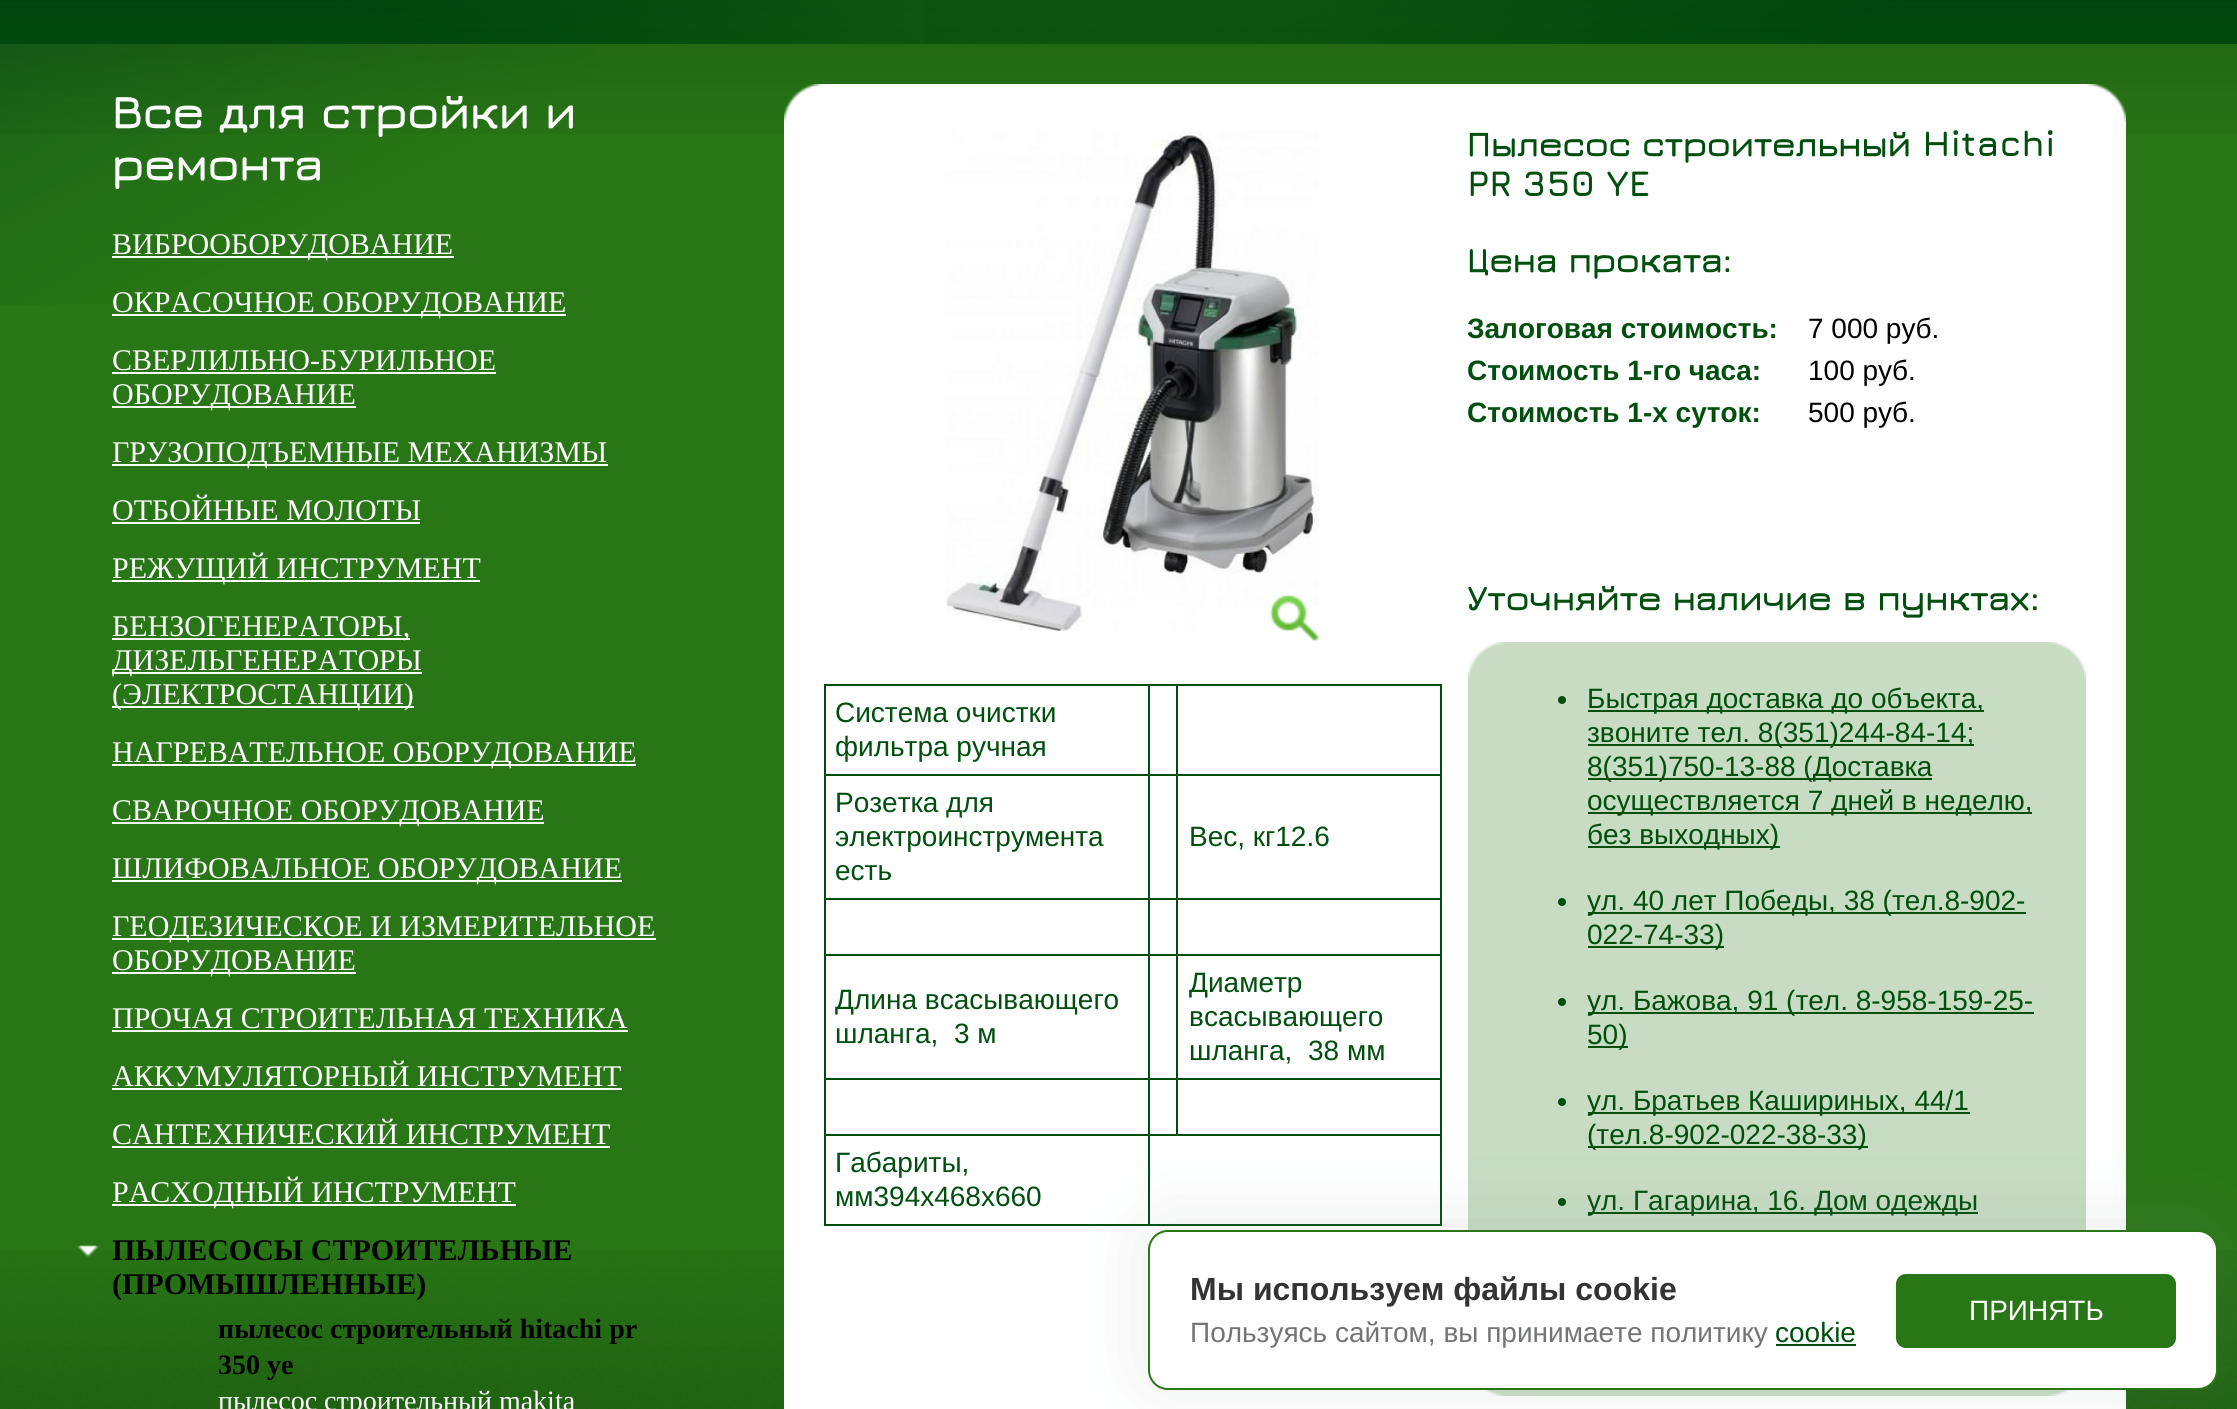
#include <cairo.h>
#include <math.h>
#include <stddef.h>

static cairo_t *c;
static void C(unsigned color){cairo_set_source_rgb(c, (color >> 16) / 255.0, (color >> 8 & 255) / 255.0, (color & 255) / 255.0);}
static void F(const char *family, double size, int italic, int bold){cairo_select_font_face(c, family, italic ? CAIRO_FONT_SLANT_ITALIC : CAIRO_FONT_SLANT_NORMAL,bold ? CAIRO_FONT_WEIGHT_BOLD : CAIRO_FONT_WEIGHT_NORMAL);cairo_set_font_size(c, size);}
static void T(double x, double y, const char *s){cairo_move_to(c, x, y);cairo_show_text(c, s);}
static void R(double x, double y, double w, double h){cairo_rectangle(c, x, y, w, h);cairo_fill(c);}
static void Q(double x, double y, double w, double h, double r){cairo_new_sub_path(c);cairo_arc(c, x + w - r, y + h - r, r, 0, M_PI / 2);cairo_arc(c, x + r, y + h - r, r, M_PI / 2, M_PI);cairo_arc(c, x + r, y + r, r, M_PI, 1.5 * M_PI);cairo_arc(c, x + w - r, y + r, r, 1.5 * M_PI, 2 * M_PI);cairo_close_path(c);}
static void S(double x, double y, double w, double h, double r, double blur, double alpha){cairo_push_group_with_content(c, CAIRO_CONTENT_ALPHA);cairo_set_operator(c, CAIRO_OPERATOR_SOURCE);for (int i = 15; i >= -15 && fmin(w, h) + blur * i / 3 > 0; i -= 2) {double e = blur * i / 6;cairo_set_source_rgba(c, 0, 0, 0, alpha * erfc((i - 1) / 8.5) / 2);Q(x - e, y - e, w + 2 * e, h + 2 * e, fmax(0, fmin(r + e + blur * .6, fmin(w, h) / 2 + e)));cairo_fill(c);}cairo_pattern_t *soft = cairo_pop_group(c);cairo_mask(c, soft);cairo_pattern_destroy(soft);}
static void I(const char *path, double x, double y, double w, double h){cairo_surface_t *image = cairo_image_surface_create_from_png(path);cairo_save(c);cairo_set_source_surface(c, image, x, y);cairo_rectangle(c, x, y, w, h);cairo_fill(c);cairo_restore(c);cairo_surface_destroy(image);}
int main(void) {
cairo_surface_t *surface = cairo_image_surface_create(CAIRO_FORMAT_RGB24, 2237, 1409);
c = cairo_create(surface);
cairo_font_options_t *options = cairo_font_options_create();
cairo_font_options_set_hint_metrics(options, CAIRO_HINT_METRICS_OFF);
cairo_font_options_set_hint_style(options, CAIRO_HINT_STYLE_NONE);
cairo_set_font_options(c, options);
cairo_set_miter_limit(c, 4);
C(0x287615);
cairo_paint(c);
I("1.png",0,0,595,305);
I("2.png",0,0,1475,44);
I("4.png",924,0,1313,44);
I("3.png",0,0,2237,134);
I("5.png",784,84,1302,40);
I("6.png",2086,84,40,40);
I("14.png",0,1250,2237,159);
C(0xffffff);
R(784,124,1342,1285);
F("Jura",48,0,1);
T(112,128,"Все для стройки и");
T(112,180,"ремонта");
C(0xfefefe);
R(112,256,342,2);
F("Liberation Serif",30,0,0);
C(0xffffff);
T(112,254,"ВИБРООБОРУДОВАНИЕ");
C(0xfefefe);
R(112,314,454,2);
C(0xffffff);
T(112,312,"ОКРАСОЧНОЕ ОБОРУДОВАНИЕ");
T(112,370,"СВЕРЛИЛЬНО-БУРИЛЬНОЕ");
C(0xfefefe);
R(112,372,384,2);
R(112,406,244,2);
C(0xffffff);
T(112,404,"ОБОРУДОВАНИЕ");
C(0xfefefe);
R(112,464,496,2);
C(0xffffff);
T(112,462,"ГРУЗОПОДЪЕМНЫЕ МЕХАНИЗМЫ");
T(112,520,"ОТБОЙНЫЕ МОЛОТЫ");
C(0xfefefe);
R(112,522,308,2);
R(112,580,368,2);
C(0xffffff);
T(112,578,"РЕЖУЩИЙ ИНСТРУМЕНТ");
C(0xfefefe);
R(112,638,298,2);
C(0xffffff);
T(112,636,"БЕНЗОГЕНЕРАТОРЫ,");
C(0xfefefe);
R(112,672,310,2);
C(0xffffff);
T(112,670,"ДИЗЕЛЬГЕНЕРАТОРЫ");
C(0xfefefe);
R(112,706,302,2);
C(0xffffff);
T(112,704,"(ЭЛЕКТРОСТАНЦИИ)");
C(0xfefefe);
R(112,764,524,2);
C(0xffffff);
T(112,762,"НАГРЕВАТЕЛЬНОЕ ОБОРУДОВАНИЕ");
C(0xfefefe);
R(112,822,432,2);
C(0xffffff);
T(112,820,"СВАРОЧНОЕ ОБОРУДОВАНИЕ");
C(0xfefefe);
R(112,880,510,2);
C(0xffffff);
T(112,878,"ШЛИФОВАЛЬНОЕ ОБОРУДОВАНИЕ");
C(0xfefefe);
R(112,938,544,2);
C(0xffffff);
T(112,936,"ГЕОДЕЗИЧЕСКОЕ И ИЗМЕРИТЕЛЬНОЕ");
C(0xfefefe);
R(112,972,244,2);
C(0xffffff);
T(112,970,"ОБОРУДОВАНИЕ");
T(112,1028,"ПРОЧАЯ СТРОИТЕЛЬНАЯ ТЕХНИКА");
C(0xfefefe);
R(112,1030,516,2);
C(0xffffff);
T(112,1086,"АККУМУЛЯТОРНЫЙ ИНСТРУМЕНТ");
C(0xfefefe);
R(112,1088,510,2);
C(0xffffff);
T(112,1144,"САНТЕХНИЧЕСКИЙ ИНСТРУМЕНТ");
C(0xfefefe);
R(112,1146,498,2);
R(112,1204,404,2);
C(0xffffff);
T(112,1202,"РАСХОДНЫЙ ИНСТРУМЕНТ");
I("7.png",77,1245,22,12);
F("Liberation Serif",30,0,1);
C(0x000000);
T(112,1260,"ПЫЛЕСОСЫ СТРОИТЕЛЬНЫЕ");
T(112,1294,"(ПРОМЫШЛЕННЫЕ)");
F("Liberation Serif",28,0,1);
T(218,1338,"пылесос строительный hitachi pr");
T(218,1374,"350 ye");
F("Liberation Serif",28,0,0);
C(0xffffff);
T(218,1410,"пылесос строительный makita");
I("8.png",946,131,373,500);
I("9.png",1269,594,50,47);
C(0x004f0f);
R(824,684,618,2);
R(1440,684,2,542);
R(824,1224,618,2);
R(824,684,2,542);
F("Liberation Sans",28,0,0);
T(835,722,"Система очистки");
T(835,756,"фильтра ручная");
R(1176,774,266,2);
R(1176,898,266,2);
R(1176,954,266,2);
R(1176,1078,266,2);
R(1176,1134,266,2);
R(1176,1078,2,58);
R(1148,1078,30,2);
R(1176,954,2,126);
R(1148,954,30,2);
R(1176,898,2,58);
R(1148,898,30,2);
R(1176,774,2,126);
R(1148,774,30,2);
R(824,1134,326,2);
R(1148,1134,2,92);
R(1148,1134,30,2);
R(1148,1078,2,58);
R(824,1078,326,2);
R(1148,954,2,126);
R(824,954,326,2);
R(1148,898,2,58);
R(824,898,326,2);
R(1148,774,2,126);
R(824,774,326,2);
R(1148,684,2,92);
R(1176,684,2,92);
T(835,812,"Розетка для");
T(835,846,"электроинструмента");
T(835,880,"есть");
T(1189,846,"Вес, кг12.6");
T(835,1009,"Длина всасывающего");
T(835,1043,"шланга,  3 м");
T(1189,992,"Диаметр");
T(1189,1026,"всасывающего");
T(1189,1060,"шланга,  38 мм");
T(835,1172,"Габариты,");
T(835,1206,"мм394х468х660");
F("Jura",36,0,1);
T(1467,156,"Пылесос строительный Hitachi");
T(1467,196,"PR 350 YE");
T(1467,272,"Цена проката:");
F("Liberation Sans",28,0,1);
T(1467,338,"Залоговая стоимость:");
F("Liberation Sans",28,0,0);
C(0x000000);
T(1808,338,"7 000 руб.");
F("Liberation Sans",28,0,1);
C(0x004f0f);
T(1467,380,"Стоимость 1-го часа:");
F("Liberation Sans",28,0,0);
C(0x000000);
T(1808,380,"100 руб.");
F("Liberation Sans",28,0,1);
C(0x004f0f);
T(1467,422,"Стоимость 1-х суток:");
F("Liberation Sans",28,0,0);
C(0x000000);
T(1808,422,"500 руб.");
F("Jura",36,0,1);
C(0x004f0f);
T(1467,610,"Уточняйте наличие в пунктах:");
I("10.png",1468,642,578,588);
I("11.png",2046,642,40,588);
cairo_arc(c,1562,700,4,0,2 * M_PI);
cairo_fill(c);
C(0x044f0f);
R(1588,710,396,2);
F("Liberation Sans",28,0,0);
C(0x004f0f);
T(1587,708,"Быстрая доставка до объекта,");
C(0x044f0f);
R(1588,744,386,2);
C(0x004f0f);
T(1587,742,"звоните тел. 8(351)244-84-14;");
C(0x044f0f);
R(1588,778,344,2);
C(0x004f0f);
T(1587,776,"8(351)750-13-88 (Доставка");
C(0x044f0f);
R(1588,812,444,2);
C(0x004f0f);
T(1587,810,"осуществляется 7 дней в неделю,");
C(0x044f0f);
R(1588,846,192,2);
C(0x004f0f);
T(1587,844,"без выходных)");
cairo_new_path(c);
cairo_arc(c,1562,902,4,0,2 * M_PI);
cairo_fill(c);
C(0x044f0f);
R(1588,912,438,2);
C(0x004f0f);
T(1587,910,"ул. 40 лет Победы, 38 (тел.8-902-");
C(0x044f0f);
R(1588,946,136,2);
C(0x004f0f);
T(1587,944,"022-74-33)");
cairo_new_path(c);
cairo_arc(c,1562,1002,4,0,2 * M_PI);
cairo_fill(c);
C(0x044f0f);
R(1588,1012,446,2);
C(0x004f0f);
T(1587,1010,"ул. Бажова, 91 (тел. 8-958-159-25-");
C(0x044f0f);
R(1588,1046,40,2);
C(0x004f0f);
T(1587,1044,"50)");
cairo_new_path(c);
cairo_arc(c,1562,1102,4,0,2 * M_PI);
cairo_fill(c);
C(0x044f0f);
R(1588,1112,382,2);
C(0x004f0f);
T(1587,1110,"ул. Братьев Кашириных, 44/1");
C(0x044f0f);
R(1588,1146,280,2);
C(0x004f0f);
T(1587,1144,"(тел.8-902-022-38-33)");
cairo_new_path(c);
cairo_arc(c,1562,1202,4,0,2 * M_PI);
cairo_fill(c);
C(0x044f0f);
R(1588,1212,390,2);
C(0x004f0f);
T(1587,1210,"ул. Гагарина, 16. Дом одежды");
I("12.png",1468,1390,578,6);
I("13.png",2046,1390,40,6);
C(0x7a828b);
S(1148,1224,1070,160,20,37,.16);
C(0xffffff);
Q(1149,1231,1068,158,19);
cairo_fill_preserve(c);
C(0x287615);
cairo_stroke(c);
F("Liberation Sans",32,0,1);
C(0x333333);
T(1190,1300,"Мы используем файлы cookie");
F("Liberation Sans",28,0,0);
C(0x737474);
T(1190,1342,"Пользуясь сайтом, вы принимаете политику");
C(0x004f0f);
T(1775,1342,"cookie");
C(0x044f0f);
R(1776,1344,80,2);
C(0x287615);
Q(1896,1274,280,74,10);
cairo_fill(c);
C(0xffffff);
T(1969,1320,"ПРИНЯТЬ");
cairo_surface_write_to_png(surface, "o.png");
cairo_font_options_destroy(options);
cairo_destroy(c);
cairo_surface_destroy(surface);
return 0;
}
